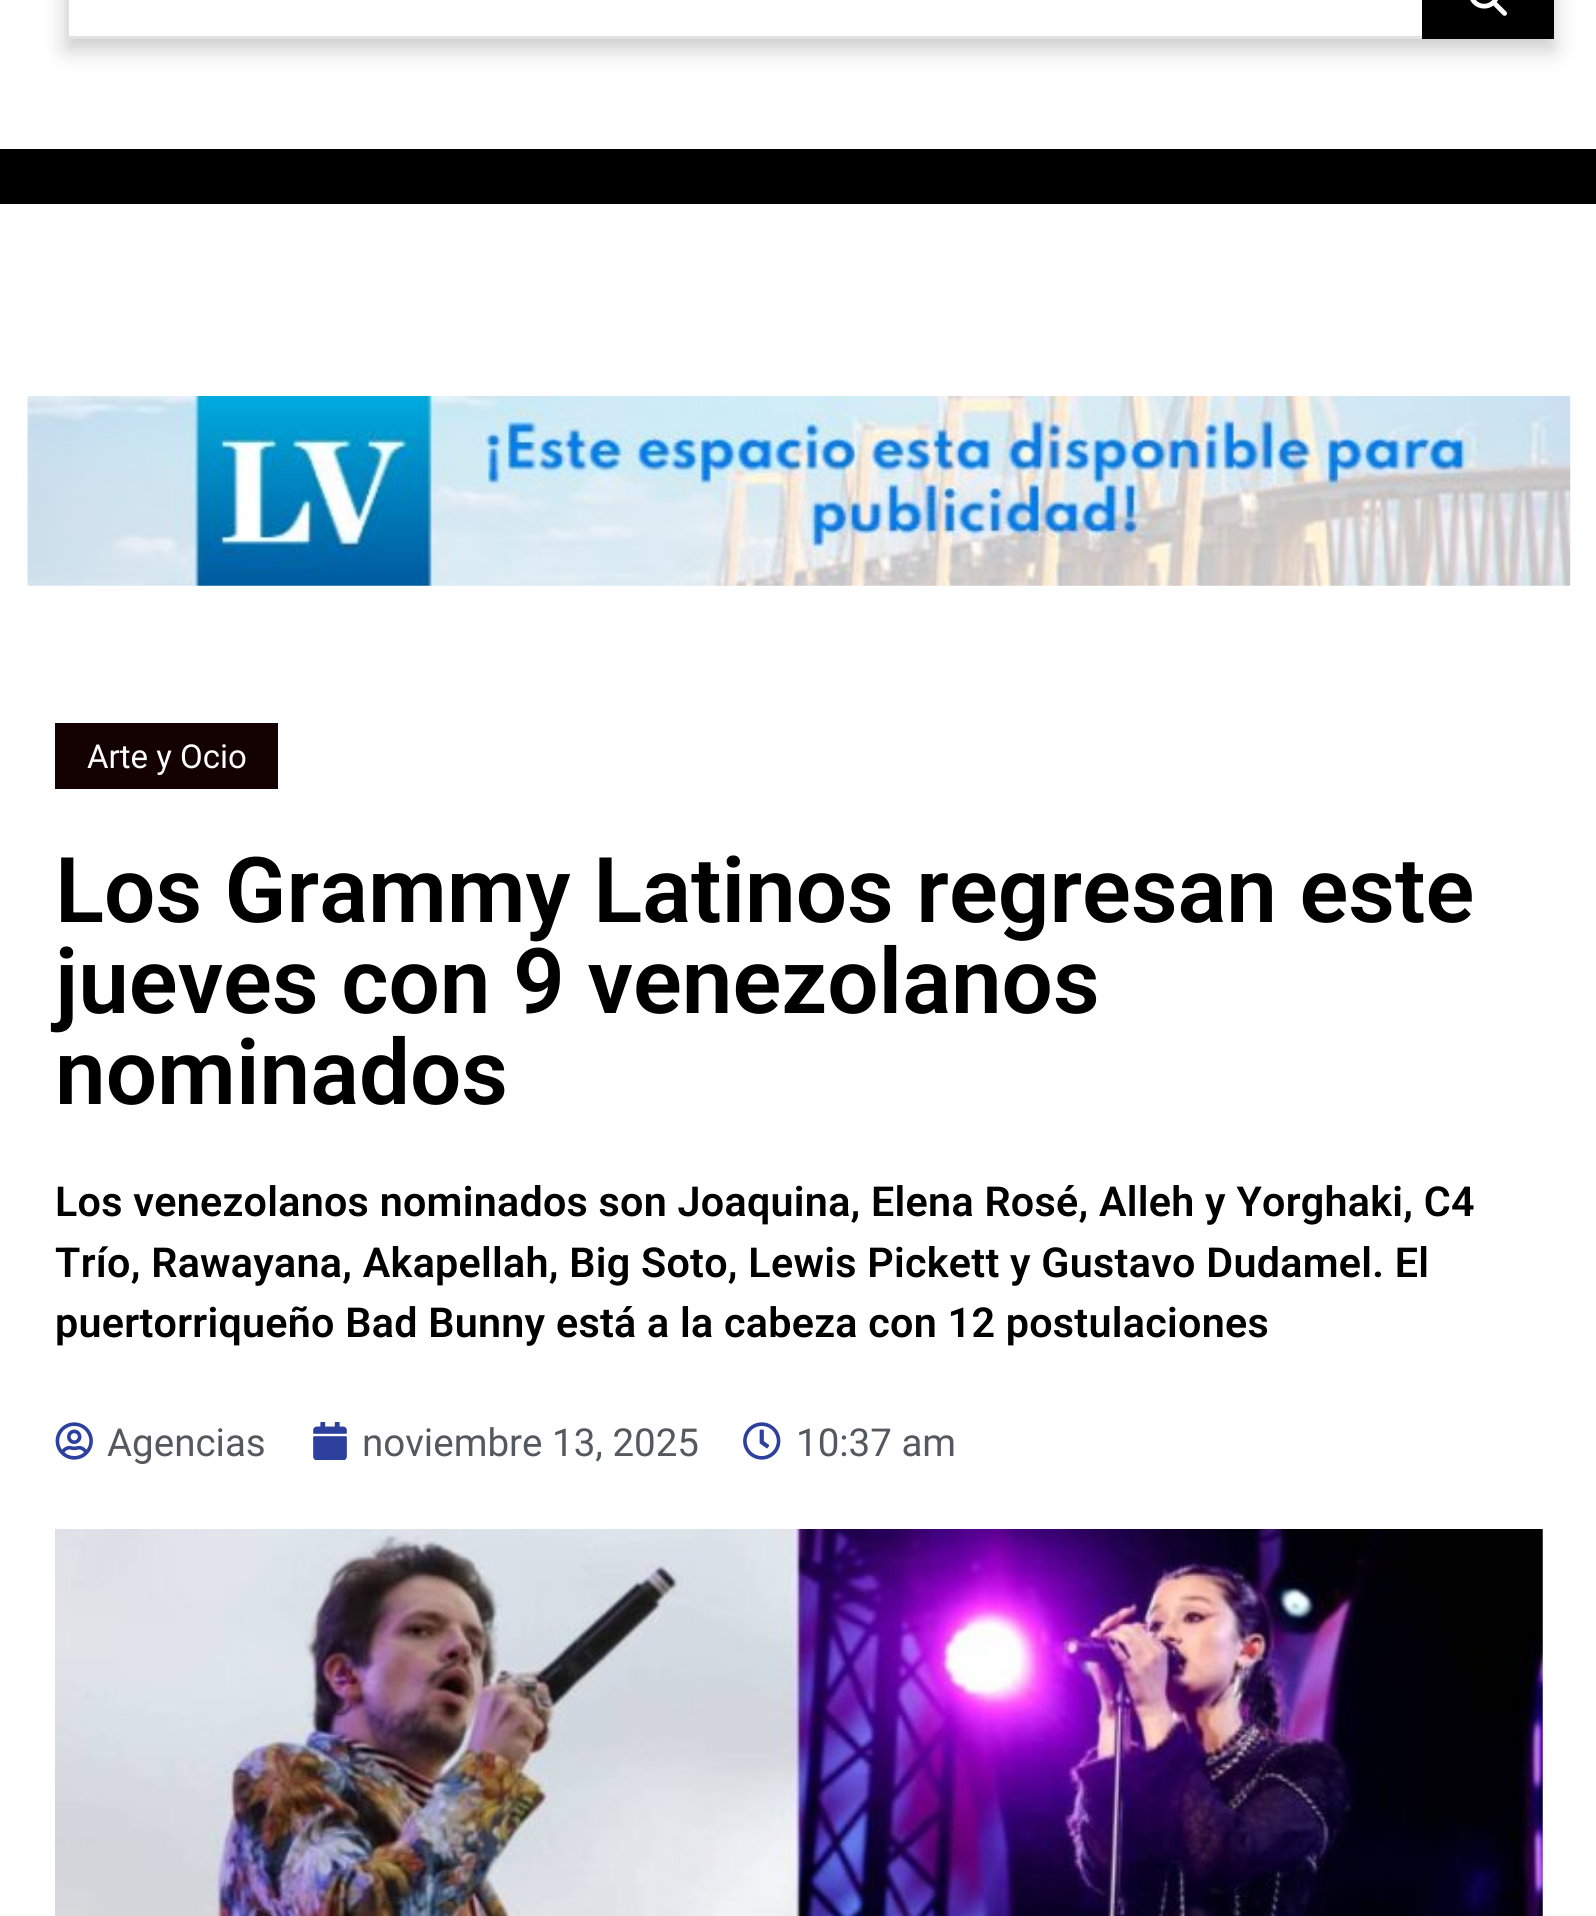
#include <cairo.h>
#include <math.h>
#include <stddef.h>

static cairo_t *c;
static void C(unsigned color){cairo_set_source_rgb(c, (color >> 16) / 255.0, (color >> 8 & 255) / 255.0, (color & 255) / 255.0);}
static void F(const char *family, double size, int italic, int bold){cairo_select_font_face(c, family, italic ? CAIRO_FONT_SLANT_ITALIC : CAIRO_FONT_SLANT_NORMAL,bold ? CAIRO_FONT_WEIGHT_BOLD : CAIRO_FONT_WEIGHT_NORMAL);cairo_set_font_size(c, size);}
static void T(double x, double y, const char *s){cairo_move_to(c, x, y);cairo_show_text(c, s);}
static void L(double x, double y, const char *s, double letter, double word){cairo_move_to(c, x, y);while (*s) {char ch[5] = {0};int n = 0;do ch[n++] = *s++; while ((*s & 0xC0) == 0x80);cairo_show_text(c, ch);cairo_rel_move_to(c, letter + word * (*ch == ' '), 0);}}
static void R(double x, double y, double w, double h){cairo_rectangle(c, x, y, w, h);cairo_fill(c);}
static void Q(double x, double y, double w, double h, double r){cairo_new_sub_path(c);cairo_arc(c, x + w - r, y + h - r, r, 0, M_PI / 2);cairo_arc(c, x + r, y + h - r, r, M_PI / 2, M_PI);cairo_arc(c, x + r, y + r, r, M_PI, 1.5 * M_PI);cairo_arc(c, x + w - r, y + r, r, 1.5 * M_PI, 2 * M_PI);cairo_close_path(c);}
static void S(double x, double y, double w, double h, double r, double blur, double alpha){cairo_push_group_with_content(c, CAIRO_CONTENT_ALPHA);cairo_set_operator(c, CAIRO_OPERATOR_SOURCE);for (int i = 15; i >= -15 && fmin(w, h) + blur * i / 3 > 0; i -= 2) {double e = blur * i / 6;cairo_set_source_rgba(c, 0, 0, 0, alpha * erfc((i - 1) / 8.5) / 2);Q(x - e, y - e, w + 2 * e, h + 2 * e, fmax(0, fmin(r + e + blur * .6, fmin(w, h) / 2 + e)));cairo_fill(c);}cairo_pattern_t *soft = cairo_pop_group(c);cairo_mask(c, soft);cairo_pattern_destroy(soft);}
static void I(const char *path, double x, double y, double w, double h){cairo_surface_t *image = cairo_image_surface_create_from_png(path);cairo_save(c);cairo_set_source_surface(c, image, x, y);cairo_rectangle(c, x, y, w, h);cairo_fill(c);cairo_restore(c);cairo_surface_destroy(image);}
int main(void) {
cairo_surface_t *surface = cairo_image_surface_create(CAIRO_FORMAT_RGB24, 1596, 1916);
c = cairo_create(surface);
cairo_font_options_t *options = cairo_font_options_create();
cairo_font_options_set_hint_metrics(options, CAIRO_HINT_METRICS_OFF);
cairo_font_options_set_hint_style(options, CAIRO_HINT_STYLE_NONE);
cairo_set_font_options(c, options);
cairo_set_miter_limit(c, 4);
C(0xffffff);
cairo_paint(c);
C(0x000000);
S(66,-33,1488,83,0,11,.2);
C(0xffffff);
R(69,0,1353,36);
C(0xe1e1e1);
R(66,36,1356,3);
R(66,0,3,39);
C(0x000000);
R(1422,0,132,39);
I("1.png",1470,0,37,16);
R(0,149,1596,55);
I("2.png",27,396,1544,190);
C(0x140101);
R(55,723,223,66);
F("Roboto",33,0,0);
C(0xffffff);
T(87,768,"Arte y Ocio");
F("Roboto SemiBold",90.75,0,0);
C(0x000000);
T(55,922,"Los Grammy Latinos regresan este");
T(55,1013,"jueves con 9 venezolanos");
T(55,1104,"nominados");
F("Roboto SemiBold",41.25,0,0);
L(55,1216,"Los venezolanos nominados son Joaquina, Elena Rosé, Alleh y Yorghaki, C4",.28,0);
L(55,1277,"Trío, Rawayana, Akapellah, Big Soto, Lewis Pickett y Gustavo Dudamel. El",.28,0);
L(55,1337,"puertorriqueño Bad Bunny está a la cabeza con 12 postulaciones",.28,0);
I("3.png",55,1422,38,38);
F("Roboto",38.5,0,0);
C(0x54595f);
T(107,1456,"Agencias");
I("4.png",313,1422,34,38);
T(362,1456,"noviembre 13, 2025");
I("5.png",743,1422,38,38);
T(796,1456,"10:37 am");
I("6.png",55,1529,1488,387);
cairo_surface_write_to_png(surface, "o.png");
cairo_font_options_destroy(options);
cairo_destroy(c);
cairo_surface_destroy(surface);
return 0;
}
